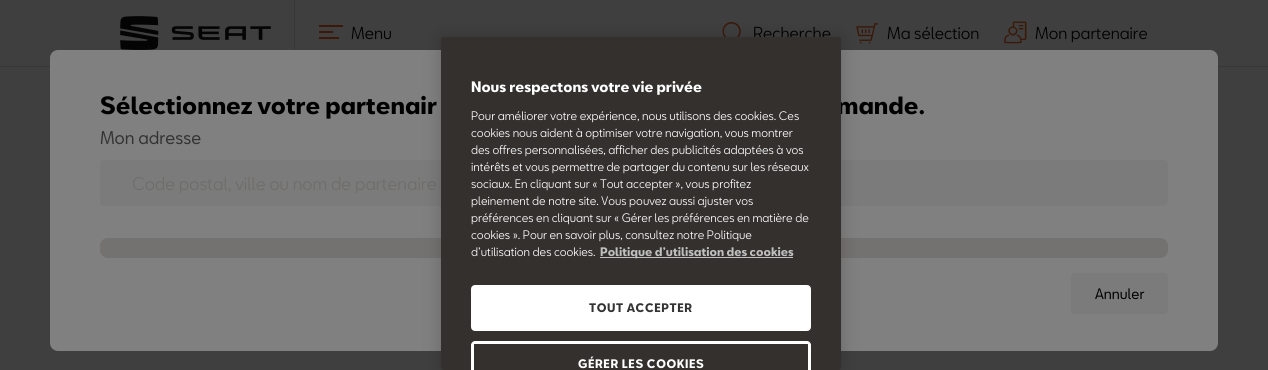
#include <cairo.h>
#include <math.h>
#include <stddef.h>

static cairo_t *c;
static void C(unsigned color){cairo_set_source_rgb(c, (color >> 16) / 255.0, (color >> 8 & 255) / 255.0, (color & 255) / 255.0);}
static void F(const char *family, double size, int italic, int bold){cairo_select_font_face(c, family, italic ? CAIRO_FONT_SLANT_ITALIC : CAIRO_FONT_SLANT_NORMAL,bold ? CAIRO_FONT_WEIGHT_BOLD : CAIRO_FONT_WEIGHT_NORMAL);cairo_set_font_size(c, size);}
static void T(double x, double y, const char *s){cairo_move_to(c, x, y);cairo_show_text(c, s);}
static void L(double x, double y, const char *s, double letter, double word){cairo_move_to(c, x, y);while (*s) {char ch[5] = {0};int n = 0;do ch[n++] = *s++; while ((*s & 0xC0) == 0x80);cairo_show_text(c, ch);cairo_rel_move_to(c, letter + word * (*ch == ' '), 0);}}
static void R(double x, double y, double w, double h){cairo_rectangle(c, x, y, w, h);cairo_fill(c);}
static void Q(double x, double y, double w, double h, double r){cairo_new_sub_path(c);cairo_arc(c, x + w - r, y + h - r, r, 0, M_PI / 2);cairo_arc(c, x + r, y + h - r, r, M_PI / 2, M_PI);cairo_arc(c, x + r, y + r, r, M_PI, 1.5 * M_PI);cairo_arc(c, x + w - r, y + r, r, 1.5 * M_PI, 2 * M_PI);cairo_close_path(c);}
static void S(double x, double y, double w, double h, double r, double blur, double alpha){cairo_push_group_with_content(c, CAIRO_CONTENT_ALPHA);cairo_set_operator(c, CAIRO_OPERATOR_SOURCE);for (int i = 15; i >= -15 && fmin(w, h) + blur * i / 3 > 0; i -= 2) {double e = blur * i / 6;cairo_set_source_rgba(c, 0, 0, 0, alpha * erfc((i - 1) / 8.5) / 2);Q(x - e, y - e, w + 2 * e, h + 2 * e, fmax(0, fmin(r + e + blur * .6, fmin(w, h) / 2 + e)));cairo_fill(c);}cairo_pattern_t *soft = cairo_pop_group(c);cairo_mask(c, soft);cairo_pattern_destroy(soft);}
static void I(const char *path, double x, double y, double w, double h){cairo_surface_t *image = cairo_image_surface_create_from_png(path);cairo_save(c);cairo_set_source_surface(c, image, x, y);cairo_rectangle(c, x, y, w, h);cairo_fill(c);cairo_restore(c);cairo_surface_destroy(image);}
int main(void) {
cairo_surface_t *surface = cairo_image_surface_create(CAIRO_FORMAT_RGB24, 1268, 370);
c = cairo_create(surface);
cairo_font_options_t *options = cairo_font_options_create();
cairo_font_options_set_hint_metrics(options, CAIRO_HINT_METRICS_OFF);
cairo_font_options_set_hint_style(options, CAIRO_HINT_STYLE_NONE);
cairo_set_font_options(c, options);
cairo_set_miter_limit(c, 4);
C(0x3f3f3f);
cairo_paint(c);
C(0x383735);
R(0,66,1268,1);
I("1.png",120,16,151,34);
R(294,0,1,50);
C(0x3b1807);
R(319,31,14,2);
R(319,25,24,2);
R(319,37,20,2);
F("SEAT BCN",16,0,0);
C(0x000000);
T(351,39,"Menu");
I("2.png",722,22,19,15);
T(753,39,"Recherche");
I("3.png",856,23,22,21);
T(887,39,"Ma sélection");
I("4.png",1004,21,23,23);
T(1035,39,"Mon partenaire");
C(0x808080);
Q(50,50,1168,301,8);
cairo_fill(c);
F("SEAT BCN",23,0,1);
C(0x000000);
T(100,114,"Sélectionnez votre partenair");
T(837,114,"mande.");
F("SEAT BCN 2",17,0,0);
C(0x333333);
T(100,144,"Mon adresse");
C(0x7b7b7b);
Q(100,160,1068,46,4);
cairo_fill(c);
cairo_save(c);
cairo_rectangle(c,132,173,1023,20);
cairo_clip(c);
F("SEAT BCN",17,0,0);
C(0x6f6d6a);
T(132,190,"Code postal, ville ou nom de partenaire");
cairo_restore(c);
C(0x737270);
Q(100,238,1068,20,8);
cairo_fill(c);
C(0x7b7b7b);
Q(1071,273,97,41,4);
cairo_fill(c);
F("SEAT BCN 2",14,0,0);
C(0x000000);
T(1095,299,"Annuler");
C(0x000000);
S(441,37,400,333,2.5,9,.2);
C(0x33302e);
Q(441,37,400,333,2.5);
cairo_fill(c);
F("SEAT BCN",14,0,1);
C(0xffffff);
T(471,92,"Nous respectons votre vie privée");
F("SEAT BCN",11.4,0,0);
T(471,120,"Pour améliorer votre expérience, nous utilisons des cookies. Ces");
T(471,137,"cookies nous aident à optimiser votre navigation, vous montrer");
T(471,154,"des offres personnalisées, afficher des publicités adaptées à vos");
T(471,171,"intérêts et vous permettre de partager du contenu sur les réseaux");
T(471,188,"sociaux. En cliquant sur « Tout accepter », vous profitez");
T(471,205,"pleinement de notre site. Vous pouvez aussi ajuster vos");
T(471,222,"préférences en cliquant sur « Gérer les préférences en matière de");
T(471,239,"cookies ». Pour en savoir plus, consultez notre Politique");
T(471,256,"d’utilisation des cookies.");
C(0xc0c0c0);
R(600,257,193,1);
F("SEAT BCN",11.4,0,1);
T(600,256,"Politique d’utilisation des cookies");
C(0xffffff);
Q(472.5,286.5,337,43,2.5);
cairo_fill_preserve(c);
cairo_set_line_width(c,3);
cairo_stroke(c);
C(0x333333);
L(589,312,"TOUT ACCEPTER",.6,0);
C(0xffffff);
cairo_new_path(c);
cairo_move_to(c,475,341);
cairo_curve_to(c,473,341,471,343,471,345);
cairo_line_to(c,471,370);
cairo_line_to(c,474,370);
cairo_line_to(c,474,345);
cairo_curve_to(c,474,344,474,344,475,344);
cairo_line_to(c,807,344);
cairo_curve_to(c,808,344,808,344,808,345);
cairo_line_to(c,808,370);
cairo_line_to(c,811,370);
cairo_line_to(c,811,345);
cairo_curve_to(c,811,343,809,341,807,341);
cairo_close_path(c);
cairo_fill(c);
L(578,368,"GÉRER LES COOKIES",.6,0);
cairo_surface_write_to_png(surface, "o.png");
cairo_font_options_destroy(options);
cairo_destroy(c);
cairo_surface_destroy(surface);
return 0;
}
